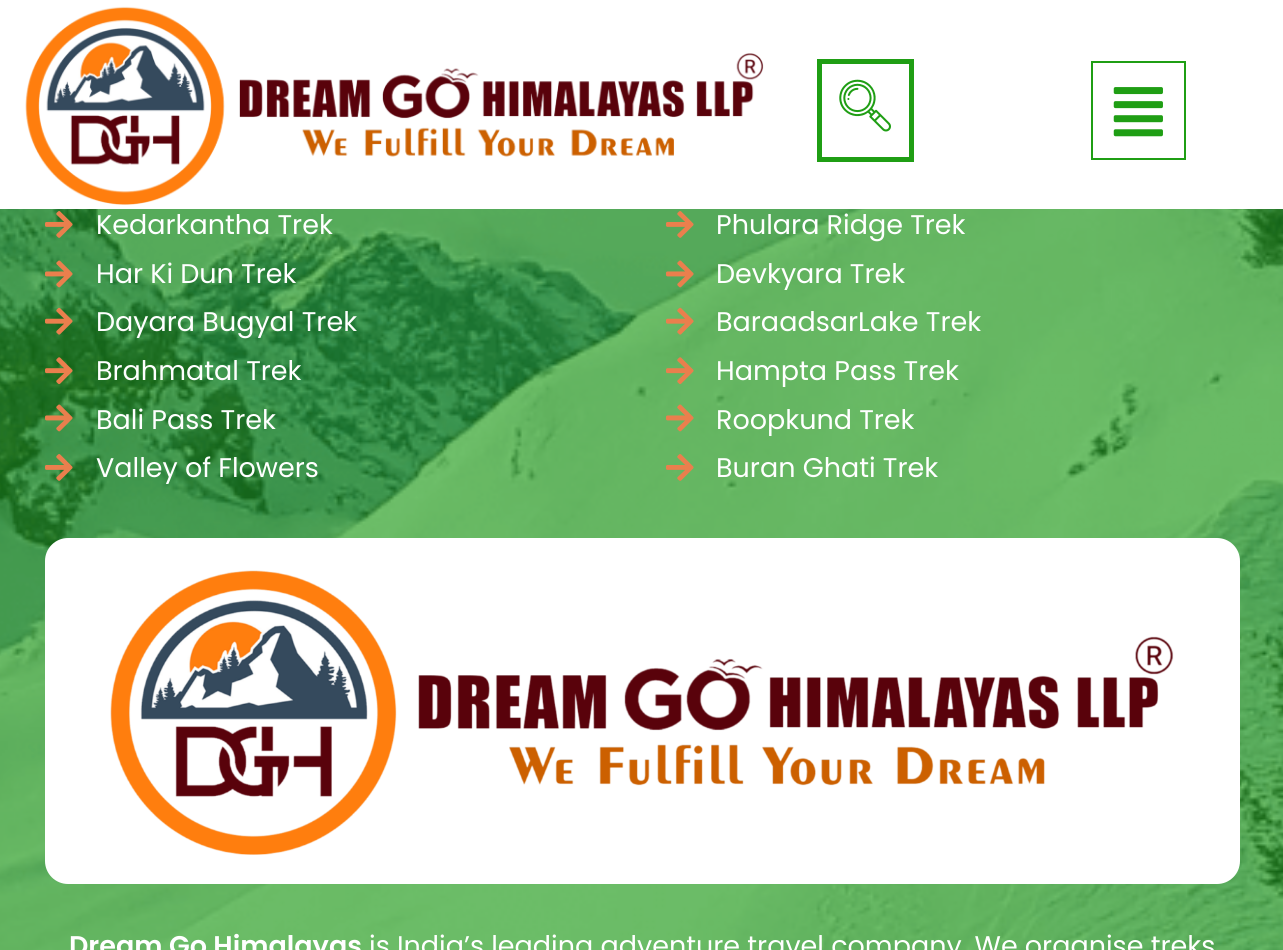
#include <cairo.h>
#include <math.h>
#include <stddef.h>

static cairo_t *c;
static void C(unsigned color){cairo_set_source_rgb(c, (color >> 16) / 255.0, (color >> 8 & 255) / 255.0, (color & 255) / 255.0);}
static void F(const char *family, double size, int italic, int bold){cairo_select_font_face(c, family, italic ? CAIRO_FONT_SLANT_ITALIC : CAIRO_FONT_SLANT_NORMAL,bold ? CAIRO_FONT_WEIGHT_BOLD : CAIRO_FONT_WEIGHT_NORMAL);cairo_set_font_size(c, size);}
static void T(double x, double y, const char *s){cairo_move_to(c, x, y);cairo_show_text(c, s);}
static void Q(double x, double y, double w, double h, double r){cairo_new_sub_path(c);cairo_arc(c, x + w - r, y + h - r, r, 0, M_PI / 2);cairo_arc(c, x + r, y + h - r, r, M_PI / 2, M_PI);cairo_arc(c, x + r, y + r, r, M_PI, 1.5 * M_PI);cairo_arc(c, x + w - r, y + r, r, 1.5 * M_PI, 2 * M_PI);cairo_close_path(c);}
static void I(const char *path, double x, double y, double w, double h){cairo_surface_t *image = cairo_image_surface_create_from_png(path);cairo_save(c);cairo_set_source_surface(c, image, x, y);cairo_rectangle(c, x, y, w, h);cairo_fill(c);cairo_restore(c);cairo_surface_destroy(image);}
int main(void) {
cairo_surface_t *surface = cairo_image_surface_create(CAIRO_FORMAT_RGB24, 1283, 950);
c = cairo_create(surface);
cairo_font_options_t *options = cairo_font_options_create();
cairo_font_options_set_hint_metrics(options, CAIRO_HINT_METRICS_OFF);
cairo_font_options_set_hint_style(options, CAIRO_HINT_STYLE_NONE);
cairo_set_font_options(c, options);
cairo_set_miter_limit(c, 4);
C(0xffffff);
cairo_paint(c);
I("1.png",25,6,739,199);
cairo_rectangle(c,819.5,61.5,92,98);
C(0x1f9e14);
cairo_set_line_width(c,5);
cairo_stroke(c);
I("2.png",839,79,52,53);
cairo_rectangle(c,1092,62,93,97);
cairo_set_line_width(c,2);
cairo_stroke(c);
I("3.png",1113,87,50,50);
I("4.png",0,209,1283,741);
I("5.png",45,211,28,27);
F("Poppins",27,0,0);
C(0xffffff);
T(96,234,"Kedarkantha Trek");
I("6.png",45,260,28,28);
T(96,283,"Har Ki Dun Trek");
I("7.png",45,307,28,28);
T(96,331,"Dayara Bugyal Trek");
I("8.png",45,357,28,28);
T(96,380,"Brahmatal Trek");
I("9.png",45,404,28,28);
T(96,429,"Bali Pass Trek");
I("10.png",45,454,28,27);
T(96,477,"Valley of Flowers");
I("11.png",666,211,28,27);
T(716,234,"Phulara Ridge Trek");
I("12.png",666,260,28,28);
T(716,283,"Devkyara Trek");
I("13.png",666,307,28,28);
T(716,331,"BaraadsarLake Trek");
I("14.png",666,357,28,28);
T(716,380,"Hampta Pass Trek");
I("15.png",666,404,28,28);
T(716,429,"Roopkund Trek");
I("16.png",666,454,28,27);
T(716,477,"Buran Ghati Trek");
Q(45,538,1195,346,23);
cairo_fill(c);
I("17.png",110,570,1064,285);
F("Poppins SemiBold",27,0,0);
T(69,955,"Dream Go Himalayas");
F("Poppins",27,0,0);
T(369,955,"is India’s leading adventure travel company. We organise treks");
cairo_surface_write_to_png(surface, "o.png");
cairo_font_options_destroy(options);
cairo_destroy(c);
cairo_surface_destroy(surface);
return 0;
}
